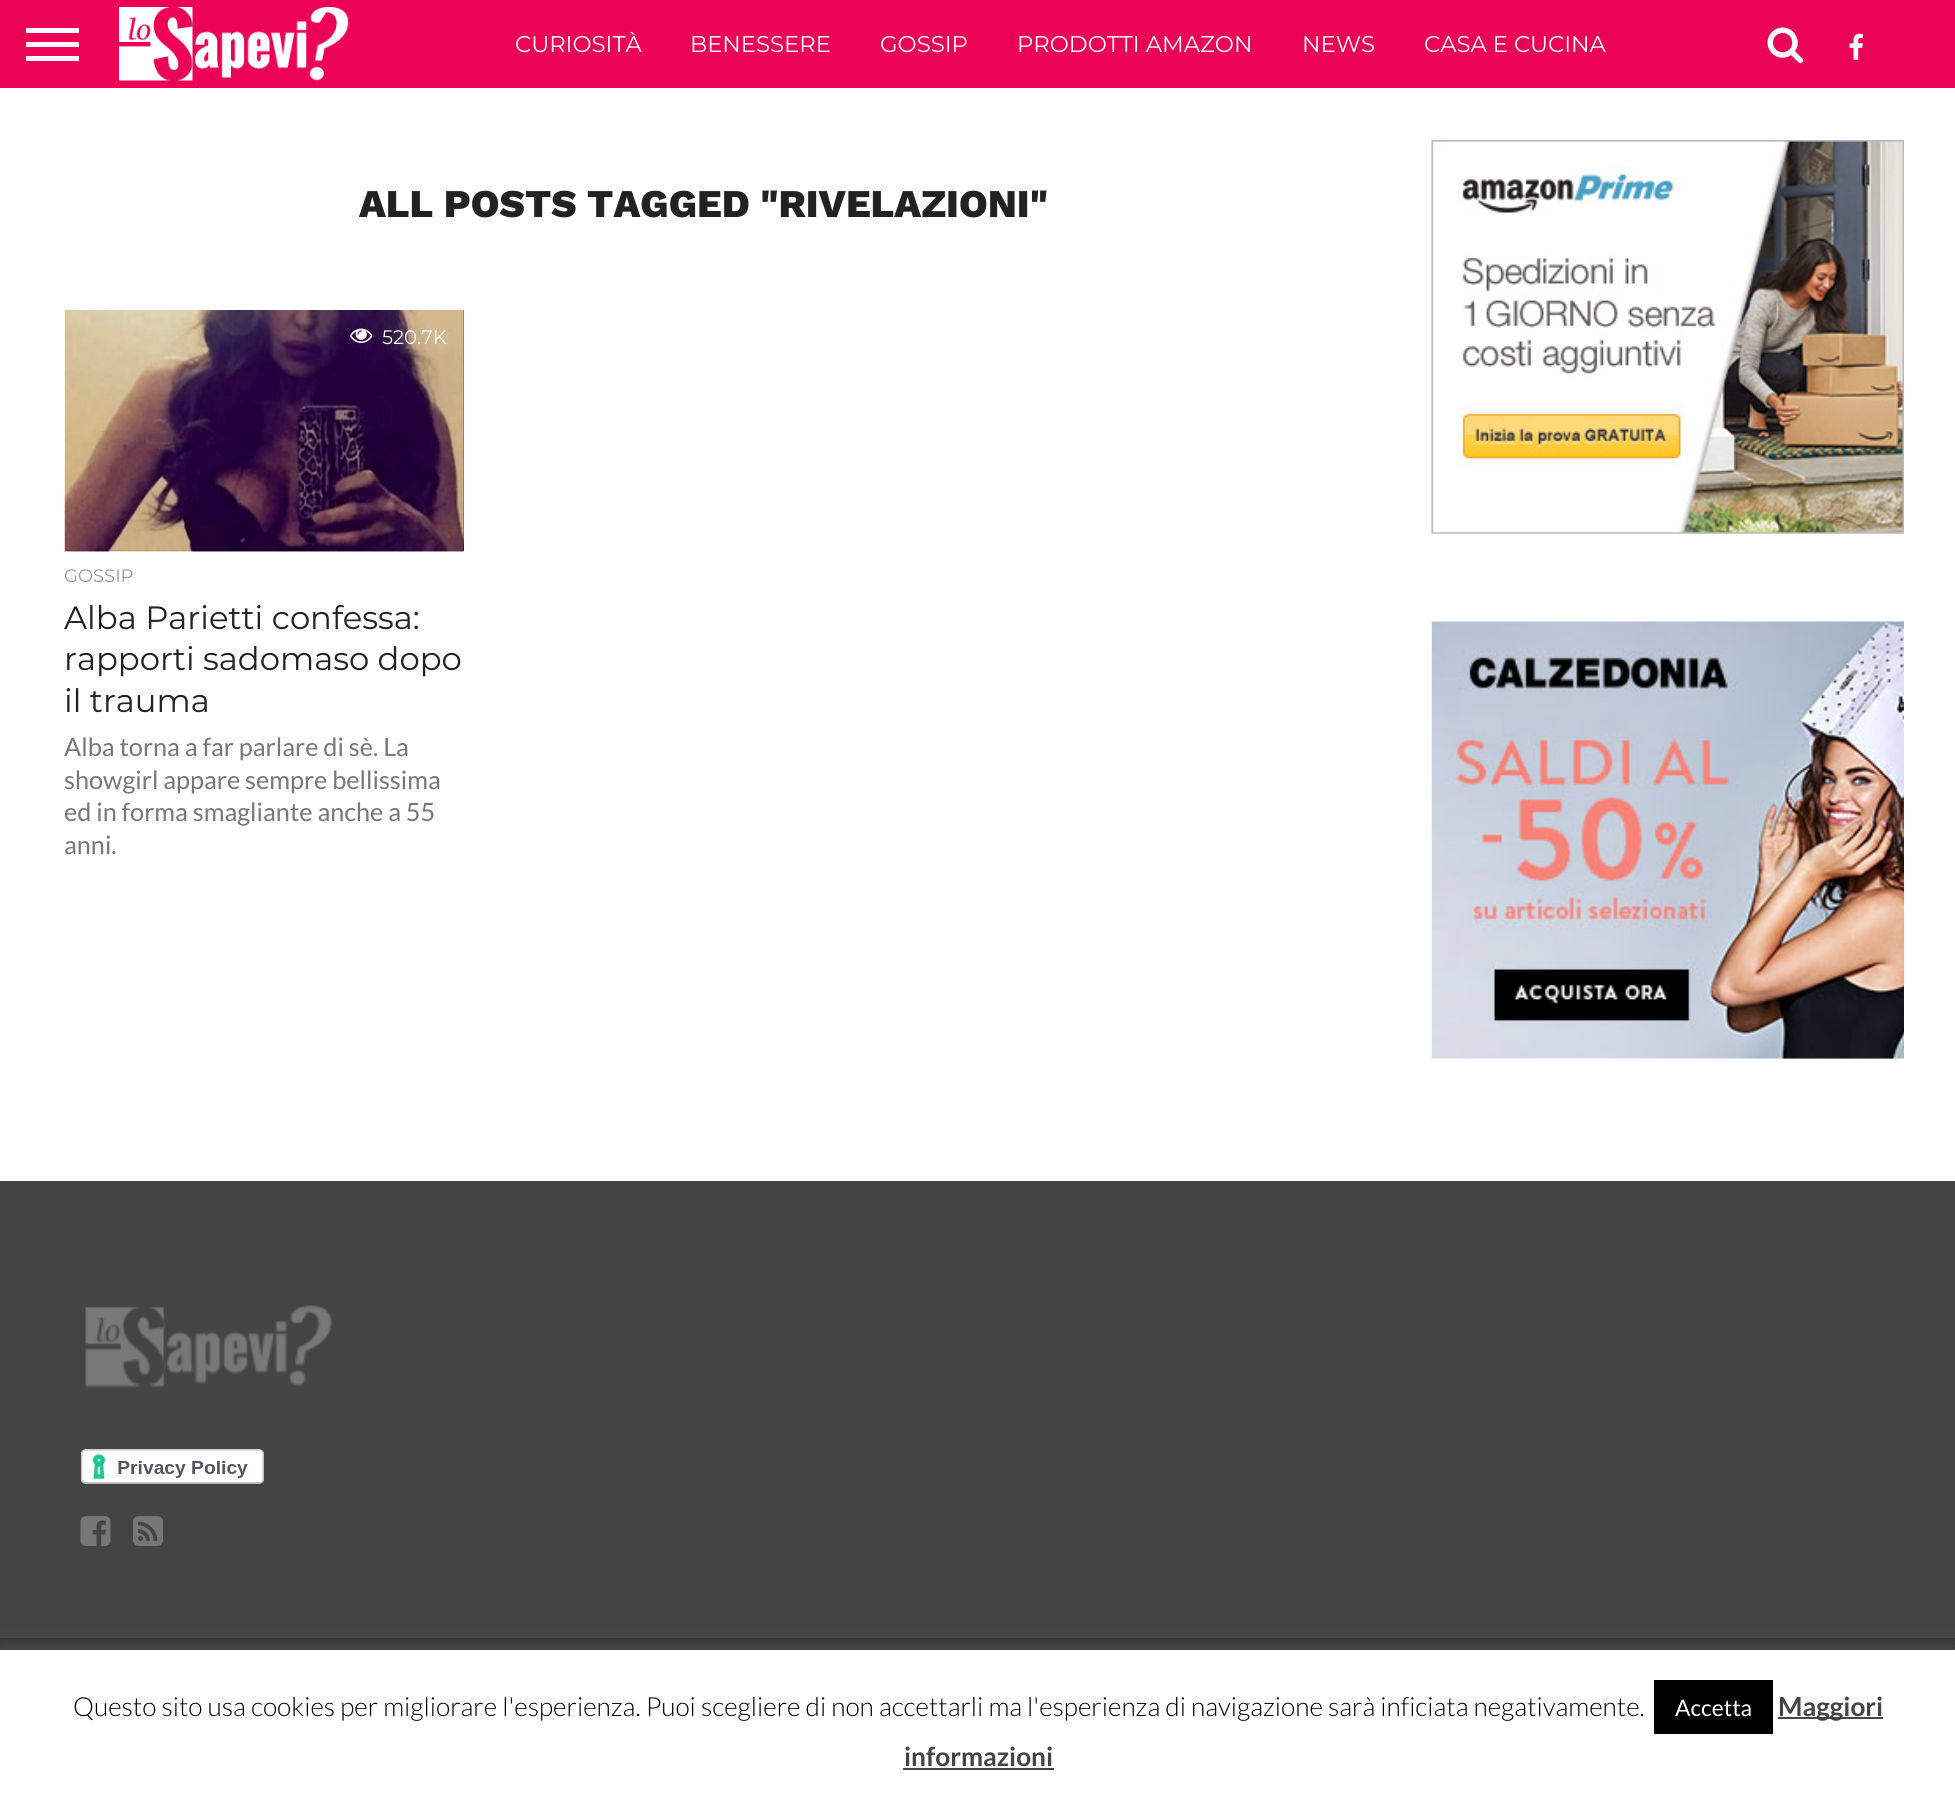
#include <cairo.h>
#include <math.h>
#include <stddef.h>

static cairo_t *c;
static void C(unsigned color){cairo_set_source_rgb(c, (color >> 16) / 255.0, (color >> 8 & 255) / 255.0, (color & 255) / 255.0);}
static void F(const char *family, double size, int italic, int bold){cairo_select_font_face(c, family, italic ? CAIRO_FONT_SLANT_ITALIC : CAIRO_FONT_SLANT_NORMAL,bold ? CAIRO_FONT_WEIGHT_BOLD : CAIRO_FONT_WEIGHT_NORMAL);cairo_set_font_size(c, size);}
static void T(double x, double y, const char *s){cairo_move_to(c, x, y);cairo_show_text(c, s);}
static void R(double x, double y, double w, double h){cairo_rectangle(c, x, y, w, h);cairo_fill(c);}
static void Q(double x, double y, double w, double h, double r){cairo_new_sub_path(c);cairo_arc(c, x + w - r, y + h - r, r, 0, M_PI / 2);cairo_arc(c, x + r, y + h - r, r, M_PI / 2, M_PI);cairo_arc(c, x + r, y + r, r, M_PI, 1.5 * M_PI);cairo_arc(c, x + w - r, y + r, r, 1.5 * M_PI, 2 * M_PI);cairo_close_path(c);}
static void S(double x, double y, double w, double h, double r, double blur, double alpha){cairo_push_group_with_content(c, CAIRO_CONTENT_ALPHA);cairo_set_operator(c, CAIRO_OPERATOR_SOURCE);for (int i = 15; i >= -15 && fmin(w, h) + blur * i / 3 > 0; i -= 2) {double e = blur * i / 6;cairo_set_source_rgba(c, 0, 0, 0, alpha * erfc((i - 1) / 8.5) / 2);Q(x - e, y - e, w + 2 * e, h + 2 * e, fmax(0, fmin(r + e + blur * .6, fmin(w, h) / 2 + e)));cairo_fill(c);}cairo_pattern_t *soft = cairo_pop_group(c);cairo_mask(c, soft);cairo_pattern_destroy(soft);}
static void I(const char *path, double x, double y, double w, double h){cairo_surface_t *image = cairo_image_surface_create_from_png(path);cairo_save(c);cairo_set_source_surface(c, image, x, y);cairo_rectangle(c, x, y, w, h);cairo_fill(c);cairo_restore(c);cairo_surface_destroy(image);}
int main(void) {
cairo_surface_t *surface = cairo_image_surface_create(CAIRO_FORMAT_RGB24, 1955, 1794);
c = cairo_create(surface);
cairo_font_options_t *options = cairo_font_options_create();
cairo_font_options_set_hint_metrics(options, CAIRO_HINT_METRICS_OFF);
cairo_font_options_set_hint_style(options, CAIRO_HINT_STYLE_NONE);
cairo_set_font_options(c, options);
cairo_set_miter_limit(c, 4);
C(0xffffff);
cairo_paint(c);
C(0xeb0254);
R(0,0,1955,88);
C(0xffffff);
R(26,28,53,5);
R(26,42,53,5);
R(26,56,53,5);
I("1.png",119,7,230,74);
F("Montserrat",22.75,0,0);
T(515,52,"CURIOSITÀ");
T(690,52,"BENESSERE");
T(880,52,"GOSSIP");
T(1017,52,"PRODOTTI AMAZON");
T(1302,52,"NEWS");
T(1424,52,"CASA E CUCINA");
I("2.png",1767,27,37,37);
I("3.png",1849,33,14,27);
F("Work Sans ExtraBold",39.25,0,0);
C(0x222222);
T(359,217,"ALL POSTS TAGGED \"RIVELAZIONI\"");
C(0x000000);
R(65,310,399,241);
I("4.png",64,310,400,242);
I("5.png",350,328,23,15);
F("Montserrat",19.5,0,0);
C(0xffffff);
T(382,344,"520.7K");
F("Montserrat",18,0,0);
C(0x999999);
T(64,582,"GOSSIP");
F("Montserrat",32.25,0,0);
C(0x222222);
T(64,629,"Alba Parietti confessa:");
T(64,670,"rapporti sadomaso dopo");
T(64,712,"il trauma");
F("Lato",25.25,0,0);
C(0x777777);
T(64,756,"Alba torna a far parlare di sè. La");
T(64,789,"showgirl appare sempre bellissima");
T(64,821,"ed in forma smagliante anche a 55");
T(64,854,"anni.");
I("6.png",1431,140,473,394);
I("7.png",1431,621,473,438);
C(0x444444);
R(0,1181,1955,457);
I("8.png",85,1305,248,83);
I("9.png",80,1449,184,36);
I("10.png",80,1516,31,30);
I("11.png",133,1516,30,30);
C(0x333333);
R(0,1638,1955,12);
C(0xacabab);
S(0,1649,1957,145,0,9,.3);
C(0xffffff);
R(0,1650,1955,144);
F("Lato Light",26.25,0,0);
C(0x000000);
T(73,1716,"Questo sito usa cookies per migliorare l'esperienza. Puoi scegliere di non accettarli ma l'esperienza di navigazione sarà inficiata negativamente.");
R(1654,1680,119,54);
F("Lato",22.75,0,0);
C(0xffffff);
T(1675,1716,"Accetta");
C(0x444444);
R(1778,1717,105,2);
F("Lato",26.25,0,1);
T(1778,1716,"Maggiori");
T(904,1766,"informazioni");
R(903,1768,151,2);
cairo_surface_write_to_png(surface, "o.png");
cairo_font_options_destroy(options);
cairo_destroy(c);
cairo_surface_destroy(surface);
return 0;
}
